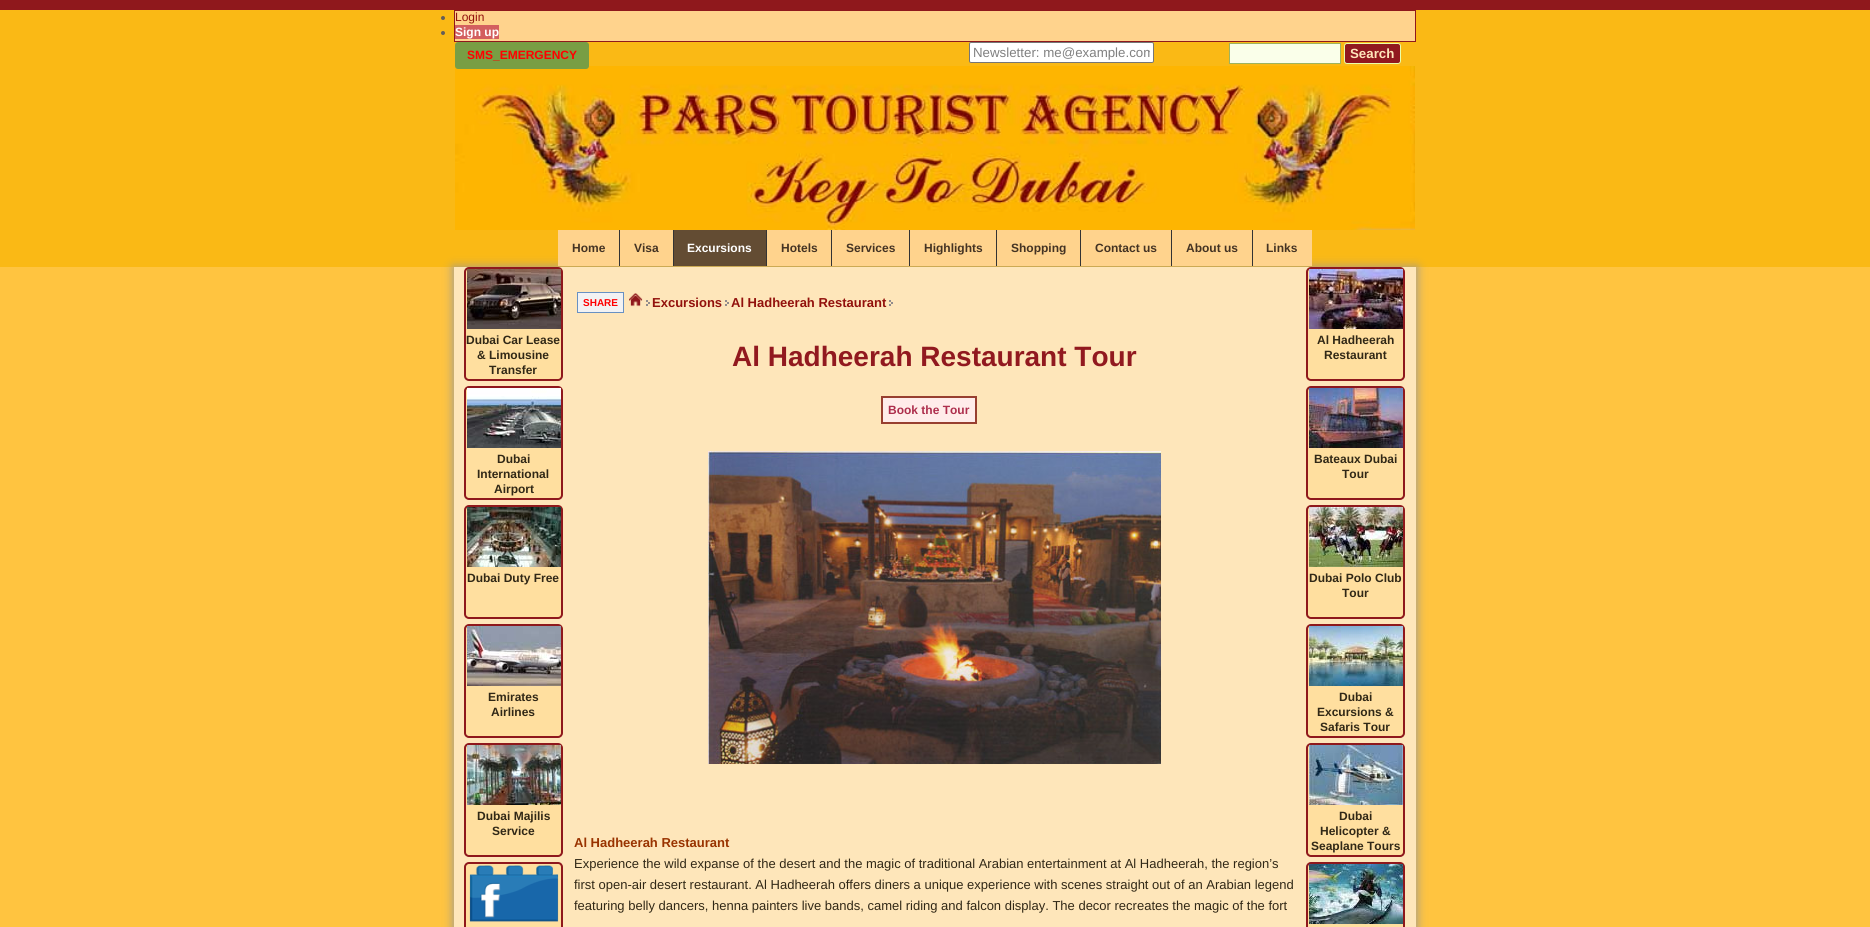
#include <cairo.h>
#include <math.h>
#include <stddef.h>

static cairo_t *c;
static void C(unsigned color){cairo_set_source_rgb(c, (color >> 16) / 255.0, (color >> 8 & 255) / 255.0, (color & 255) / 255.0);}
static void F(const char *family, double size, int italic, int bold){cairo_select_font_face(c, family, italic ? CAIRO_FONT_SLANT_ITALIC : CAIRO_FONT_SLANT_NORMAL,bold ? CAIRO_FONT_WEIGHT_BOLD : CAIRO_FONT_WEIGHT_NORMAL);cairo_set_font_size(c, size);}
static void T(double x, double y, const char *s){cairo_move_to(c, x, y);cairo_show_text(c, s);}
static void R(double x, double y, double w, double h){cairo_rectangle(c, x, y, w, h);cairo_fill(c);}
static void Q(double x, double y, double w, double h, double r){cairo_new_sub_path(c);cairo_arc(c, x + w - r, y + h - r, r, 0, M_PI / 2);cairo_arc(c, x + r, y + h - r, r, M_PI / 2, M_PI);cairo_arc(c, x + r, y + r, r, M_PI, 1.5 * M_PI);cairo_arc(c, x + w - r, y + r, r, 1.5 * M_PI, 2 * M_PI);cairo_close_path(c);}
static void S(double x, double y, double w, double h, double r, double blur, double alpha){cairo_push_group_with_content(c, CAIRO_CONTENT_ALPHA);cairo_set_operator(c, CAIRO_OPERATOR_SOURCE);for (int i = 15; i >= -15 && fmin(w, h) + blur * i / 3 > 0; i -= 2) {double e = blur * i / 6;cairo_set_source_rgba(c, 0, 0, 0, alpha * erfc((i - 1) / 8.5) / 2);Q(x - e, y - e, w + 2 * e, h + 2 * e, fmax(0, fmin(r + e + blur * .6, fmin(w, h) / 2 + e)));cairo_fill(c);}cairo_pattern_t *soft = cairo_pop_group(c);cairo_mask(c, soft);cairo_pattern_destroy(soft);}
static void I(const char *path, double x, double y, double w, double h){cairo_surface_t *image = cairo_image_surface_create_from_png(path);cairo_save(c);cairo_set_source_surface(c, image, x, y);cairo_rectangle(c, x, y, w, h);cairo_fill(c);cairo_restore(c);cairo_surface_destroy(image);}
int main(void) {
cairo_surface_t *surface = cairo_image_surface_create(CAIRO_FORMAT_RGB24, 1870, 927);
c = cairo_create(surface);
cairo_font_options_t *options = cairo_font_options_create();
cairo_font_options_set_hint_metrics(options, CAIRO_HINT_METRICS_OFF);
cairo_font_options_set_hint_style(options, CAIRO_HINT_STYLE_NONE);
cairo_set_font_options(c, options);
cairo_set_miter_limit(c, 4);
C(0xffc440);
cairo_paint(c);
C(0xfab915);
R(0,10,1870,257);
C(0x8f181c);
R(0,0,1870,10);
C(0xffd38d);
cairo_rectangle(c,454.5,10.5,961,31);
cairo_fill_preserve(c);
C(0x8f181c);
cairo_set_line_width(c,1);
cairo_stroke(c);
C(0x645e58);
cairo_arc(c,443,18,2,0,2 * M_PI);
cairo_fill(c);
F("Liberation Sans",12,0,0);
C(0x92110c);
T(455,21,"Login");
C(0x645e58);
cairo_new_path(c);
cairo_arc(c,443,33,2,0,2 * M_PI);
cairo_fill(c);
C(0xd35f5f);
R(455,25,44,14);
F("Liberation Sans",12,0,1);
C(0xffffff);
T(455,36,"Sign up");
C(0xfaffea);
cairo_rectangle(c,1229.5,43.5,111,20);
cairo_fill_preserve(c);
C(0x9db360);
cairo_stroke(c);
C(0x91191f);
Q(1344.5,43.5,56,20,2.5);
cairo_fill_preserve(c);
C(0xe9ffaa);
cairo_stroke(c);
F("Liberation Sans",13.3,0,1);
C(0xfee6ba);
T(1350,58,"Search");
I("1.png",455,66,960,164);
C(0x789e44);
Q(455,42,134,27,3);
cairo_fill(c);
F("Liberation Sans",12,0,1);
C(0xff0000);
T(467,59,"SMS_EMERGENCY");
C(0xffffff);
Q(969.5,42.5,184,20,1.5);
cairo_fill_preserve(c);
C(0x767676);
cairo_stroke(c);
cairo_save(c);
cairo_rectangle(c,973,45,177,15);
cairo_clip(c);
F("Liberation Sans",13.3,0,0);
C(0x808080);
T(973,57,"Newsletter: me@example.com");
cairo_restore(c);
C(0x999999);
S(453,267,964,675,0,5,1);
C(0xffd38d);
R(558,230,61,36);
C(0x333333);
R(619,230,1,36);
C(0x443323);
T(572,252,"Home");
C(0xffd38d);
R(620,230,53,36);
C(0x333333);
R(673,230,1,36);
C(0x443323);
T(634,252,"Visa");
C(0x634c33);
R(674,230,92,36);
C(0x333333);
R(766,230,1,36);
C(0xffffff);
T(687,252,"Excursions");
C(0xffd38d);
R(767,230,64,36);
C(0x333333);
R(831,230,1,36);
C(0x443323);
T(781,252,"Hotels");
C(0xffd38d);
R(832,230,77,36);
C(0x333333);
R(909,230,1,36);
C(0x443323);
T(846,252,"Services");
C(0xffd38d);
R(910,230,86,36);
C(0x333333);
R(996,230,1,36);
C(0x443323);
T(924,252,"Highlights");
C(0xffd38d);
R(997,230,83,36);
C(0x333333);
R(1080,230,1,36);
C(0x443323);
T(1011,252,"Shopping");
C(0xffd38d);
R(1081,230,90,36);
C(0x333333);
R(1171,230,1,36);
C(0x443323);
T(1095,252,"Contact us");
C(0xffd38d);
R(1172,230,80,36);
C(0x333333);
R(1252,230,1,36);
C(0x443323);
T(1186,252,"About us");
C(0xffd38d);
R(1253,230,59,36);
C(0x443323);
T(1266,252,"Links");
C(0xfee6ba);
R(454,267,962,660);
C(0xffdf9f);
Q(465,268,97,112,4);
cairo_fill_preserve(c);
C(0x8f181c);
cairo_set_line_width(c,2);
cairo_stroke(c);
I("2.png",467,269,94,60);
C(0x312816);
T(466,344,"Dubai Car Lease");
T(477,359,"& Limousine");
T(489,374,"Transfer");
C(0xffdf9f);
Q(465,387,97,112,4);
cairo_fill_preserve(c);
C(0x8f181c);
cairo_stroke(c);
I("3.png",467,388,94,60);
C(0x312816);
T(497,463,"Dubai");
T(477,478,"International");
T(494,493,"Airport");
C(0xffdf9f);
Q(465,506,97,112,4);
cairo_fill_preserve(c);
C(0x8f181c);
cairo_stroke(c);
I("4.png",467,507,94,60);
C(0x312816);
T(467,582,"Dubai Duty Free");
C(0xffdf9f);
Q(465,625,97,112,4);
cairo_fill_preserve(c);
C(0x8f181c);
cairo_stroke(c);
I("5.png",467,626,94,60);
C(0x312816);
T(488,701,"Emirates");
T(491,716,"Airlines");
C(0xffdf9f);
Q(465,744,97,112,4);
cairo_fill_preserve(c);
C(0x8f181c);
cairo_stroke(c);
I("6.png",467,745,94,60);
C(0x312816);
T(477,820,"Dubai Majilis");
T(492,835,"Service");
C(0xffdf9f);
Q(465,863,97,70,4);
cairo_fill_preserve(c);
C(0x8f181c);
cairo_stroke(c);
I("7.png",469,865,90,57);
C(0xf2f2f3);
cairo_rectangle(c,577.5,292.5,46,20);
cairo_fill_preserve(c);
C(0x6891c3);
cairo_set_line_width(c,1);
cairo_stroke(c);
F("Liberation Sans",10,0,1);
C(0xff0000);
T(583,306,"SHARE");
I("8.png",629,293,14,14);
I("9.png",646,300,4,6);
F("Liberation Sans",13,0,1);
C(0x92110c);
T(652,307,"Excursions");
I("9.png",725,300,4,6);
T(731,307,"Al Hadheerah Restaurant");
I("9.png",889,300,4,6);
F("Liberation Sans",28,0,1);
C(0x91191f);
T(732,366,"Al Hadheerah Restaurant Tour");
C(0xffecea);
cairo_rectangle(c,882,397,94,26);
cairo_fill_preserve(c);
C(0x983f30);
cairo_set_line_width(c,2);
cairo_stroke(c);
F("Liberation Sans",12,0,1);
C(0xad2e4d);
T(888,414,"Book the Tour");
I("10.png",708,451,453,313);
F("Liberation Sans",13,0,1);
C(0x993300);
T(574,847,"Al Hadheerah Restaurant");
F("Liberation Sans",13,0,0);
C(0x312816);
T(574,868,"Experience the wild expanse of the desert and the magic of traditional Arabian entertainment at Al Hadheerah, the region’s");
T(574,889,"first open-air desert restaurant. Al Hadheerah offers diners a unique experience with scenes straight out of an Arabian legend");
T(574,910,"featuring belly dancers, henna painters live bands, camel riding and falcon display. The decor recreates the magic of the fort");
C(0xffdf9f);
Q(1307,268,97,112,4);
cairo_fill_preserve(c);
C(0x8f181c);
cairo_stroke(c);
I("11.png",1309,269,94,60);
F("Liberation Sans",12,0,1);
C(0x312816);
T(1317,344,"Al Hadheerah");
T(1324,359,"Restaurant");
C(0xffdf9f);
Q(1307,387,97,112,4);
cairo_fill_preserve(c);
C(0x8f181c);
cairo_stroke(c);
I("12.png",1309,388,94,60);
C(0x312816);
T(1314,463,"Bateaux Dubai");
T(1342,478,"Tour");
C(0xffdf9f);
Q(1307,506,97,112,4);
cairo_fill_preserve(c);
C(0x8f181c);
cairo_stroke(c);
I("13.png",1309,507,94,60);
C(0x312816);
T(1309,582,"Dubai Polo Club");
T(1342,597,"Tour");
C(0xffdf9f);
Q(1307,625,97,112,4);
cairo_fill_preserve(c);
C(0x8f181c);
cairo_stroke(c);
I("14.png",1309,626,94,60);
C(0x312816);
T(1339,701,"Dubai");
T(1317,716,"Excursions &");
T(1320,731,"Safaris Tour");
C(0xffdf9f);
Q(1307,744,97,112,4);
cairo_fill_preserve(c);
C(0x8f181c);
cairo_stroke(c);
I("15.png",1309,745,94,60);
C(0x312816);
T(1339,820,"Dubai");
T(1320,835,"Helicopter &");
T(1311,850,"Seaplane Tours");
C(0xffdf9f);
Q(1307,863,97,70,4);
cairo_fill_preserve(c);
C(0x8f181c);
cairo_stroke(c);
I("16.png",1309,864,94,60);
cairo_surface_write_to_png(surface, "o.png");
cairo_font_options_destroy(options);
cairo_destroy(c);
cairo_surface_destroy(surface);
return 0;
}
